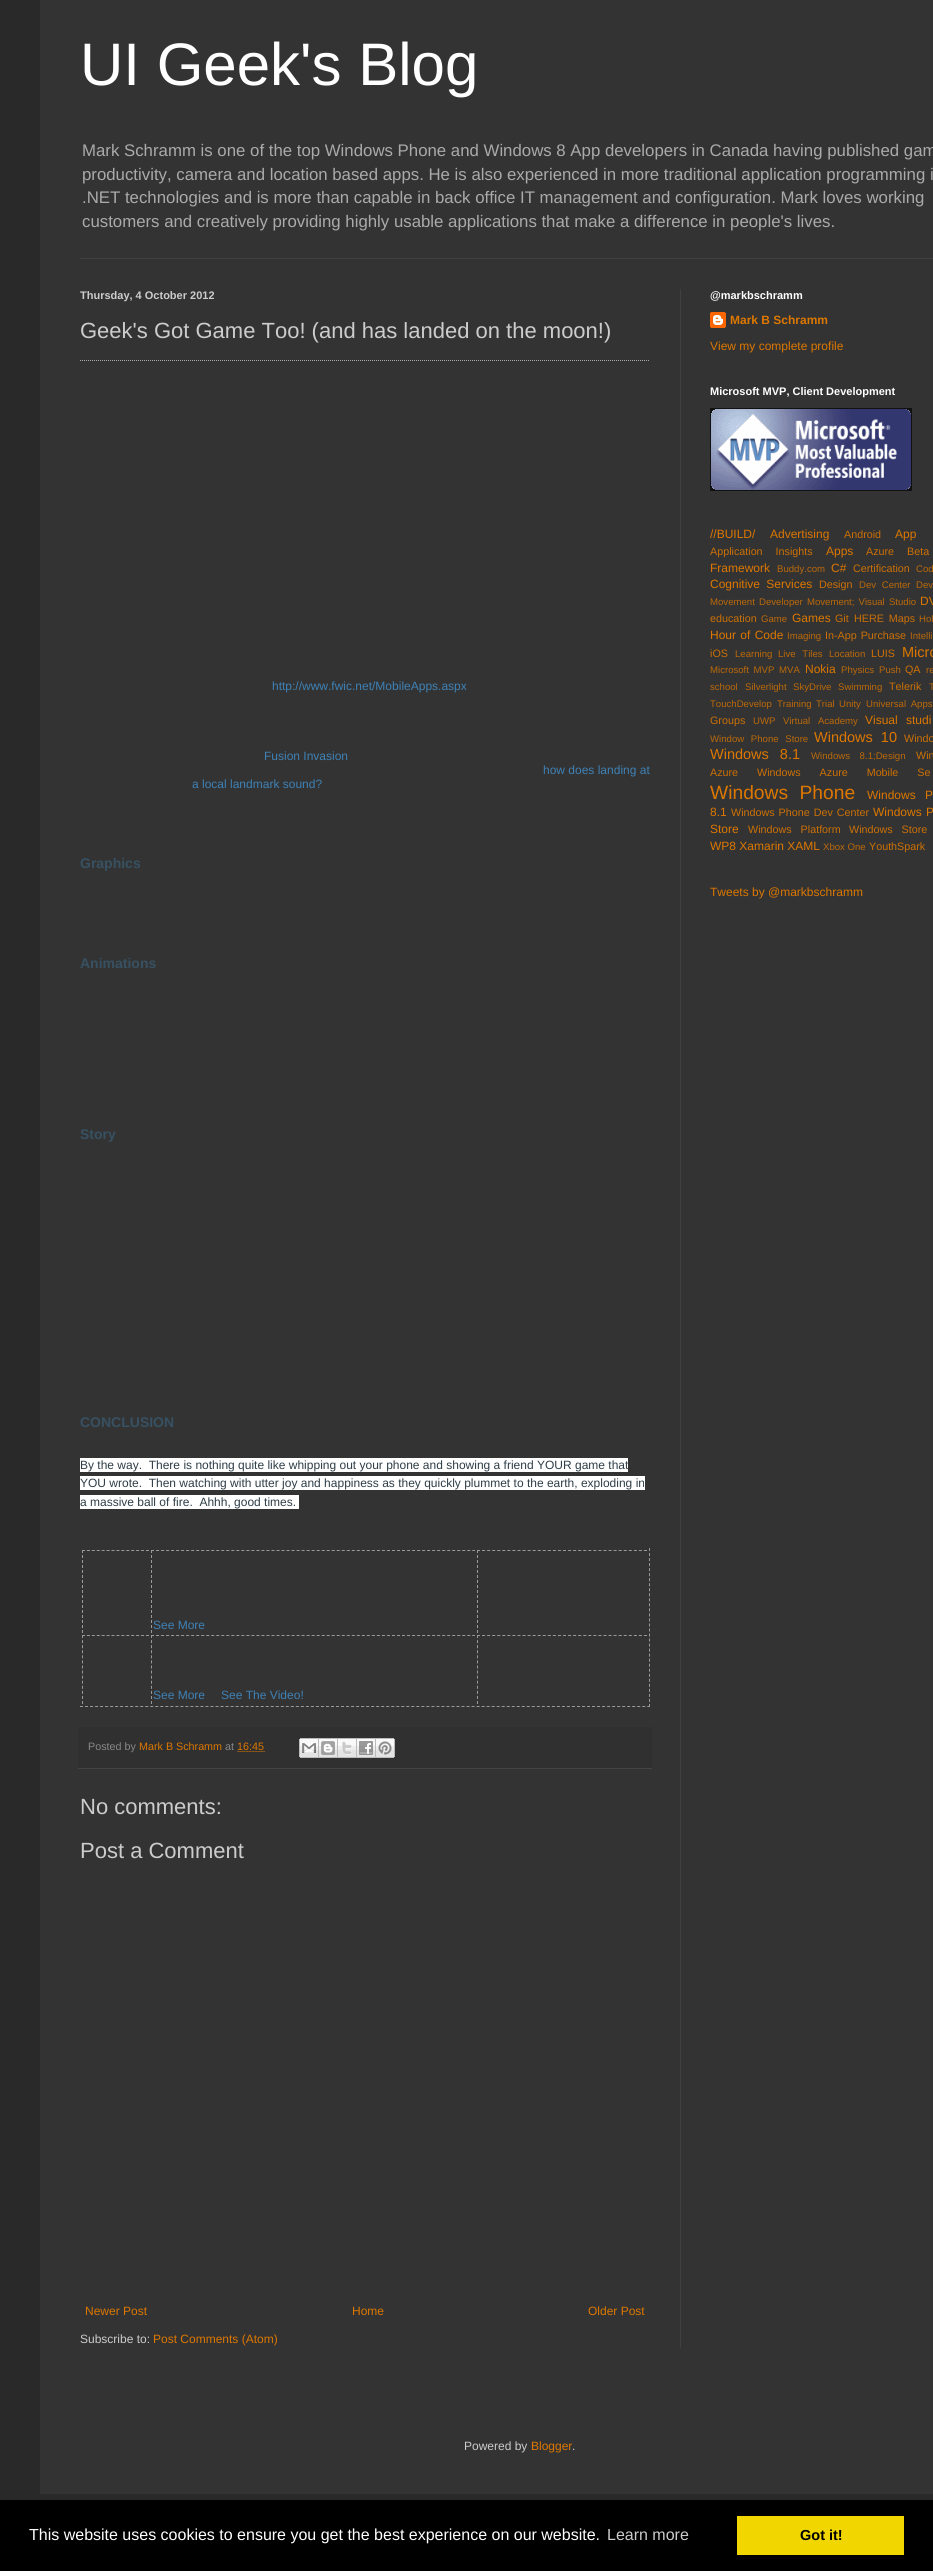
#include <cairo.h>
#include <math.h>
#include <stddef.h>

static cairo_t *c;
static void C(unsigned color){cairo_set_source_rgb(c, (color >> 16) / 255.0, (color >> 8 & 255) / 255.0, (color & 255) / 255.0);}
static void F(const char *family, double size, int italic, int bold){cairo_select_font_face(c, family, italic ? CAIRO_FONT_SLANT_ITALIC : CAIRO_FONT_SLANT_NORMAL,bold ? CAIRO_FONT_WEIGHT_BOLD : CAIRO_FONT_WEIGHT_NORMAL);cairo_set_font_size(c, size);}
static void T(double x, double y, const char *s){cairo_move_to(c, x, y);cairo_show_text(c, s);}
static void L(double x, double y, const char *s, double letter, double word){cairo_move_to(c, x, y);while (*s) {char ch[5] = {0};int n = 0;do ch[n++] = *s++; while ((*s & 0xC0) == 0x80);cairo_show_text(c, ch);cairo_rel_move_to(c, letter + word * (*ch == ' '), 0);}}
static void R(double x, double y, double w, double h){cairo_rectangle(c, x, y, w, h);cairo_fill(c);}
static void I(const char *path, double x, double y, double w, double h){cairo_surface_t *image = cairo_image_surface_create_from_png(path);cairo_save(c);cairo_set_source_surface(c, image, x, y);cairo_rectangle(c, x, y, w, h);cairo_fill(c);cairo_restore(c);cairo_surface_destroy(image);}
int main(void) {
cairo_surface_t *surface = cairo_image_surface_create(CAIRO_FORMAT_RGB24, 933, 2571);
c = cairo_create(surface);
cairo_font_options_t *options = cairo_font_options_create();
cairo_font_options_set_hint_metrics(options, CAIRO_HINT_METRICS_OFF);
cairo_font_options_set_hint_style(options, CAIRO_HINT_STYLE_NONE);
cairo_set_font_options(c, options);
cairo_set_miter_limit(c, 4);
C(0x292929);
cairo_paint(c);
C(0x333333);
R(40,0,893,2494);
F("Liberation Sans",60,0,0);
C(0xffffff);
T(80,85,"UI Geek's Blog");
F("Liberation Sans",16.8,0,0);
C(0xaaaaaa);
T(82,156,"Mark Schramm is one of the top Windows Phone and Windows 8 App developers in Canada having published gam");
T(82,180,"productivity, camera and location based apps. He is also experienced in more traditional application programming i");
T(82,203,".NET technologies and is more than capable in back office IT management and configuration. Mark loves working");
T(82,227,"customers and creatively providing highly usable applications that make a difference in people's lives.");
C(0x404040);
R(80,258,853,1);
R(680,289,1,2059);
F("Liberation Sans",11,0,1);
C(0xcccccc);
T(80,299,"Thursday, 4 October 2012");
F("Liberation Sans",22,0,0);
T(80,338,"Geek's Got Game Too! (and has landed on the moon!)");
cairo_new_path(c);
cairo_move_to(c,80,360.5);
cairo_line_to(c,650,360.5);
C(0xaaaaaa);
cairo_set_line_width(c,1);
cairo_set_dash(c,(double[]){1,1},2,0);
cairo_stroke(c);
F("Liberation Sans",12,0,0);
C(0x3e81b5);
T(272,690,"http://www.fwic.net/MobileApps.aspx");
T(264,760,"Fusion Invasion");
T(543,774,"how does landing at");
T(192,788,"a local landmark sound?");
F("Liberation Sans",14,0,1);
C(0x375162);
T(80,868,"Graphics");
T(80,968,"Animations");
T(80,1139,"Story");
T(80,1427,"CONCLUSION");
C(0xffffff);
R(80,1458,548,14);
F("Liberation Sans",12,0,0);
C(0x2e3d47);
T(80,1469,"By the way.  There is nothing quite like whipping out your phone and showing a friend YOUR game that");
C(0xffffff);
R(80,1476,565,14);
C(0x2e3d47);
T(80,1487,"YOU wrote.  Then watching with utter joy and happiness as they quickly plummet to the earth, exploding in");
C(0xffffff);
R(80,1495,219,14);
C(0x2e3d47);
T(80,1506,"a massive ball of fire.  Ahhh, good times.");
cairo_new_path(c);
cairo_move_to(c,649.5,1548);
cairo_line_to(c,649.5,1707);
C(0x999999);
cairo_set_dash(c,(double[]){3,2.03},2,0);
cairo_stroke(c);
cairo_new_path(c);
cairo_move_to(c,80,1706.5);
cairo_line_to(c,650,1706.5);
cairo_set_dash(c,(double[]){3,2.02},2,0);
cairo_stroke(c);
cairo_new_path(c);
cairo_move_to(c,82,1550.5);
cairo_line_to(c,149,1550.5);
cairo_set_dash(c,(double[]){3,1.92},2,0);
cairo_stroke(c);
cairo_new_path(c);
cairo_move_to(c,82.5,1550);
cairo_line_to(c,82.5,1633);
cairo_set_dash(c,(double[]){3,2},2,0);
cairo_stroke(c);
cairo_new_path(c);
cairo_move_to(c,151,1550.5);
cairo_line_to(c,475,1550.5);
cairo_set_dash(c,(double[]){3,2.02},2,0);
cairo_stroke(c);
cairo_new_path(c);
cairo_move_to(c,151.5,1550);
cairo_line_to(c,151.5,1633);
cairo_set_dash(c,(double[]){3,2},2,0);
cairo_stroke(c);
C(0x3e81b5);
T(153,1629,"See More");
cairo_new_path(c);
cairo_move_to(c,477,1550.5);
cairo_line_to(c,647,1550.5);
C(0x999999);
cairo_set_dash(c,(double[]){3,2.06},2,0);
cairo_stroke(c);
cairo_new_path(c);
cairo_move_to(c,477.5,1550);
cairo_line_to(c,477.5,1633);
cairo_set_dash(c,(double[]){3,2},2,0);
cairo_stroke(c);
cairo_new_path(c);
cairo_move_to(c,82,1635.5);
cairo_line_to(c,149,1635.5);
cairo_set_dash(c,(double[]){3,1.92},2,0);
cairo_stroke(c);
cairo_new_path(c);
cairo_move_to(c,82.5,1635);
cairo_line_to(c,82.5,1704);
cairo_set_dash(c,(double[]){3,2.08},2,0);
cairo_stroke(c);
cairo_new_path(c);
cairo_move_to(c,151,1635.5);
cairo_line_to(c,475,1635.5);
cairo_set_dash(c,(double[]){3,2.02},2,0);
cairo_stroke(c);
cairo_new_path(c);
cairo_move_to(c,151.5,1635);
cairo_line_to(c,151.5,1704);
cairo_set_dash(c,(double[]){3,2.08},2,0);
cairo_stroke(c);
C(0x3e81b5);
T(153,1699,"See More");
T(221,1699,"See The Video!");
cairo_new_path(c);
cairo_move_to(c,477,1635.5);
cairo_line_to(c,647,1635.5);
C(0x999999);
cairo_set_dash(c,(double[]){3,2.06},2,0);
cairo_stroke(c);
cairo_new_path(c);
cairo_move_to(c,477.5,1635);
cairo_line_to(c,477.5,1704);
cairo_set_dash(c,(double[]){3,2.08},2,0);
cairo_stroke(c);
C(0x303030);
R(78,1727,574,41);
C(0x444444);
R(78,1768,574,1);
F("Liberation Sans",10.75,0,0);
C(0x888888);
T(88,1750,"Posted by");
C(0xdd7700);
T(139,1750,"Mark B Schramm");
C(0x888888);
T(225,1750,"at");
C(0xdd7700);
T(237,1750,"16:45");
cairo_new_path(c);
cairo_move_to(c,237.5,1751.5);
cairo_line_to(c,264.5,1751.5);
cairo_set_dash(c,(double[]){1,1},2,0);
cairo_stroke(c);
I("1.png",299,1738,20,20);
I("2.png",319,1738,19,20);
I("3.png",338,1738,19,20);
I("4.png",357,1738,19,20);
I("5.png",376,1738,19,20);
F("Liberation Sans",22,0,0);
C(0xcccccc);
T(80,1814,"No comments:");
T(80,1858,"Post a Comment");
F("Liberation Sans",12,0,0);
C(0xdd7700);
T(85,2315,"Newer Post");
T(352,2315,"Home");
T(588,2315,"Older Post");
C(0xcccccc);
T(80,2343,"Subscribe to:");
C(0xdd7700);
T(153,2343,"Post Comments (Atom)");
F("Liberation Sans",11,0,1);
C(0xffffff);
T(710,299,"@markbschramm");
I("6.png",710,312,16,16);
F("Liberation Sans",12,0,1);
C(0xdd7700);
T(730,324,"Mark B Schramm");
F("Liberation Sans",12,0,0);
T(710,350,"View my complete profile");
F("Liberation Sans",11,0,1);
C(0xffffff);
T(710,395,"Microsoft MVP, Client Development");
C(0x111111);
R(710,408,202,83);
I("7.png",711,409,200,81);
F("Liberation Sans",12,0,0);
C(0xdd7700);
T(710,538,"//BUILD/");
T(770,538,"Advertising");
F("Liberation Sans",10.75,0,0);
C(0xcc7005);
T(844,538,"Android");
F("Liberation Sans",12,0,0);
C(0xdd7700);
L(895,538,"App",0,11);
F("Liberation Sans",10.75,0,0);
C(0xcc7005);
L(710,555,"Application Insights",0,10);
F("Liberation Sans",12,0,0);
C(0xdd7700);
T(826,555,"Apps");
F("Liberation Sans",10.75,0,0);
C(0xcc7005);
T(866,555,"Azure");
T(907,555,"Beta");
F("Liberation Sans",12,0,0);
C(0xdd7700);
T(710,572,"Framework");
F("Liberation Sans",9.6,0,0);
C(0xbb690a);
T(777,572,"Buddy.com");
F("Liberation Sans",12,0,0);
C(0xdd7700);
T(831,572,"C#");
F("Liberation Sans",10.75,0,0);
C(0xcc7005);
T(853,572,"Certification");
F("Liberation Sans",9.6,0,0);
C(0xbb690a);
T(916,572,"Cod");
F("Liberation Sans",12,0,0);
C(0xdd7700);
L(710,588,"Cognitive Services",0,3);
F("Liberation Sans",10.75,0,0);
C(0xcc7005);
T(819,588,"Design");
F("Liberation Sans",9.6,0,0);
C(0xbb690a);
L(859,588,"Dev Center",0,3);
T(916,588,"Dev");
T(710,605,"Movement");
L(759,605,"Developer Movement; Visual Studio",0,1.5);
F("Liberation Sans",12,0,0);
C(0xdd7700);
T(920,605,"DV");
F("Liberation Sans",10.75,0,0);
C(0xcc7005);
T(710,622,"education");
F("Liberation Sans",9.6,0,0);
C(0xbb690a);
T(761,622,"Game");
F("Liberation Sans",12,0,0);
C(0xdd7700);
T(792,622,"Games");
F("Liberation Sans",10.75,0,0);
C(0xcc7005);
T(835,622,"Git");
L(854,622,"HERE Maps",0,2);
F("Liberation Sans",9.6,0,0);
C(0xbb690a);
T(919,622,"Hol");
F("Liberation Sans",12,0,0);
C(0xdd7700);
L(710,639,"Hour of Code",0,1);
F("Liberation Sans",9.6,0,0);
C(0xbb690a);
T(787,639,"Imaging");
F("Liberation Sans",10.75,0,0);
C(0xcc7005);
L(825,639,"In-App Purchase",0,1);
F("Liberation Sans",9.6,0,0);
C(0xbb690a);
T(910,639,"Intelli");
F("Liberation Sans",10.75,0,0);
C(0xcc7005);
T(710,657,"iOS");
F("Liberation Sans",9.6,0,0);
C(0xbb690a);
T(735,657,"Learning");
L(778,657,"Live Tiles",0,4);
T(829,657,"Location");
F("Liberation Sans",10.75,0,0);
C(0xcc7005);
T(871,657,"LUIS");
F("Liberation Sans",14.5,0,0);
C(0xdd7700);
T(902,657,"Micro");
F("Liberation Sans",9.6,0,0);
C(0xbb690a);
L(710,673,"Microsoft MVP",0,2);
T(779,673,"MVA");
F("Liberation Sans",12,0,0);
C(0xdd7700);
T(805,673,"Nokia");
F("Liberation Sans",9.6,0,0);
C(0xbb690a);
T(841,673,"Physics");
T(879,673,"Push");
F("Liberation Sans",10.75,0,0);
C(0xcc7005);
T(905,673,"QA");
F("Liberation Sans",9.6,0,0);
C(0xbb690a);
T(926,673,"re");
T(710,690,"school");
T(745,690,"Silverlight");
T(793,690,"SkyDrive");
T(838,690,"Swimming");
F("Liberation Sans",10.75,0,0);
C(0xcc7005);
T(889,690,"Telerik");
F("Liberation Sans",9.6,0,0);
C(0xbb690a);
T(929,690,"T");
T(710,707,"TouchDevelop");
T(777,707,"Training");
T(816,707,"Trial");
T(839,707,"Unity");
L(866,707,"Universal Apps",0,2);
F("Liberation Sans",10.75,0,0);
C(0xcc7005);
T(710,724,"Groups");
F("Liberation Sans",9.6,0,0);
C(0xbb690a);
T(753,724,"UWP");
L(783,724,"Virtual Academy",0,5);
F("Liberation Sans",12,0,0);
C(0xdd7700);
L(865,724,"Visual studi",0,5);
F("Liberation Sans",9.6,0,0);
C(0xbb690a);
L(710,742,"Window Phone Store",0,4);
F("Liberation Sans",14.5,0,0);
C(0xdd7700);
L(814,742,"Windows 10",0,4);
F("Liberation Sans",10.75,0,0);
C(0xcc7005);
L(904,742,"Windo",0,4);
F("Liberation Sans",14.5,0,0);
C(0xdd7700);
L(710,759,"Windows 8.1",0,7);
F("Liberation Sans",9.6,0,0);
C(0xbb690a);
L(811,759,"Windows 8.1;Design",0,7);
F("Liberation Sans",10.75,0,0);
C(0xcc7005);
T(916,759,"Win");
T(710,776,"Azure");
L(757,776,"Windows Azure Mobile Se",0,16);
F("Liberation Sans",19.25,0,0);
C(0xdd7700);
L(710,799,"Windows Phone",0,6);
F("Liberation Sans",12,0,0);
L(867,799,"Windows P",0,6);
T(710,816,"8.1");
F("Liberation Sans",10.75,0,0);
C(0xcc7005);
L(731,816,"Windows Phone Dev Center",0,1);
F("Liberation Sans",12,0,0);
C(0xdd7700);
L(873,816,"Windows P",0,1);
T(710,833,"Store");
F("Liberation Sans",10.75,0,0);
C(0xcc7005);
L(748,833,"Windows Platform",0,6);
L(849,833,"Windows Store",0,6);
F("Liberation Sans",12,0,0);
C(0xdd7700);
T(710,850,"WP8 Xamarin XAML");
F("Liberation Sans",9.6,0,0);
C(0xbb690a);
T(823,850,"Xbox One");
F("Liberation Sans",10.75,0,0);
C(0xcc7005);
T(869,850,"YouthSpark");
F("Liberation Sans",12,0,0);
C(0xdd7700);
T(710,896,"Tweets by @markbschramm");
C(0xcccccc);
T(464,2450,"Powered by");
C(0xdd7700);
T(531,2450,"Blogger");
C(0xcccccc);
T(572,2450,".");
C(0x000000);
R(0,2500,933,71);
F("Liberation Sans",16,0,0);
C(0xffffff);
T(29,2540,"This website uses cookies to ensure you get the best experience on our website.");
C(0xcccccc);
T(607,2540,"Learn more");
C(0xf1d600);
R(737,2516,167,39);
F("Liberation Sans",14.5,0,1);
C(0x000000);
T(800,2540,"Got it!");
cairo_surface_write_to_png(surface, "o.png");
cairo_font_options_destroy(options);
cairo_destroy(c);
cairo_surface_destroy(surface);
return 0;
}
